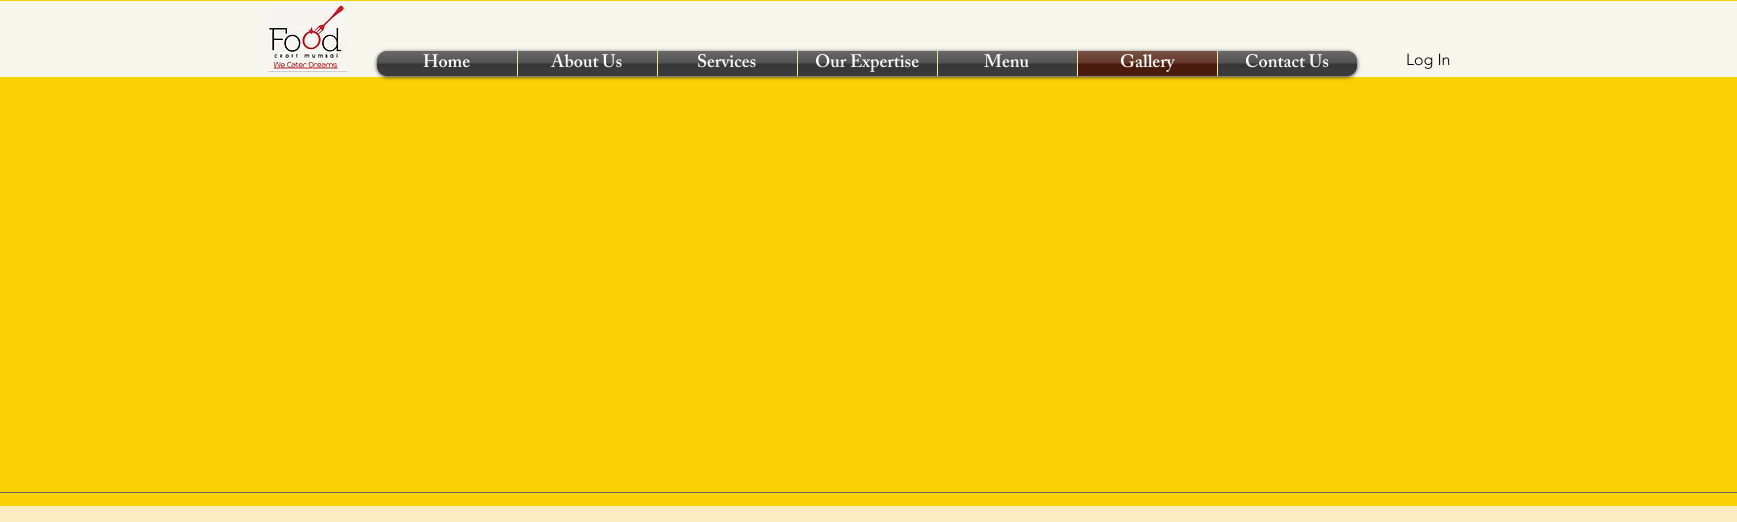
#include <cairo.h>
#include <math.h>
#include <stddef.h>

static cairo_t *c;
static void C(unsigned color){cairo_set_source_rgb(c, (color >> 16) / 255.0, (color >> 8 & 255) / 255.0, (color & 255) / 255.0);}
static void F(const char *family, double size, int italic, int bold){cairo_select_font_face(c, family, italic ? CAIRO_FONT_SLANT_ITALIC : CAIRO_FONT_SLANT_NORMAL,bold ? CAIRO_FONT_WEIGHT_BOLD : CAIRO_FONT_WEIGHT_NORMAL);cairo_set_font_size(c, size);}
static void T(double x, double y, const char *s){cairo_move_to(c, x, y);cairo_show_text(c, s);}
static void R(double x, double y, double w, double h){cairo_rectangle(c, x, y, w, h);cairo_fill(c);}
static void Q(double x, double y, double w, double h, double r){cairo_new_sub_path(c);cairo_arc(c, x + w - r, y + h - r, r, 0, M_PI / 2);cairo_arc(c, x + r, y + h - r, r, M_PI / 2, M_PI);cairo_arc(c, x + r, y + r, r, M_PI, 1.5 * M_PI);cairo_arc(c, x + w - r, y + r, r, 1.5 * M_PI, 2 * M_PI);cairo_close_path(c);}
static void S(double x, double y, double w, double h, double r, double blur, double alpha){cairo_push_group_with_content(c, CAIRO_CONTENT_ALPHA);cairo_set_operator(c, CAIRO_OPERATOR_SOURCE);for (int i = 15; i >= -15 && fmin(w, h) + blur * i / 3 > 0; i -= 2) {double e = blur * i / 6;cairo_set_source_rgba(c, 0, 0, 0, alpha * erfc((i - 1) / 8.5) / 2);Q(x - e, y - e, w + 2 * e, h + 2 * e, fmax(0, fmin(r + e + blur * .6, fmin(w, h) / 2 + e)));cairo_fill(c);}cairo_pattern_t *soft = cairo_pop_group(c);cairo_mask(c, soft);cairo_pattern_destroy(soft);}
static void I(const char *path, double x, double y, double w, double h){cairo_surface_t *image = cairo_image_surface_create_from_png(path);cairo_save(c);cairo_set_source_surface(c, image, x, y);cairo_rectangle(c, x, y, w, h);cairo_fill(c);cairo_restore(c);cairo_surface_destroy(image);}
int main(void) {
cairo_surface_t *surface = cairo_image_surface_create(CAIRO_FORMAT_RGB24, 1737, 522);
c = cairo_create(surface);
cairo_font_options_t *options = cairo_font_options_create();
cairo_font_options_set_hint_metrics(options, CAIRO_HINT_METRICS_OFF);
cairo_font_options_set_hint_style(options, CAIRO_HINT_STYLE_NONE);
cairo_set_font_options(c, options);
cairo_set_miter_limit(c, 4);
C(0xfad105);
cairo_paint(c);
C(0xf7f6ed);
R(0,1,1737,76);
I("1.png",268,5,79,67);
C(0x000000);
S(377,52,980,25,10,2,.79);
I("2.png",377,51,980,16);
C(0x3b3b3b);
cairo_new_path(c);
cairo_move_to(c,387,51);
cairo_line_to(c,517,51);
cairo_line_to(c,517,76);
cairo_line_to(c,387,76);
cairo_curve_to(c,381.5,76,377,71.5,377,66);
cairo_line_to(c,377,61);
cairo_curve_to(c,377,55.5,381.5,51,387,51);
cairo_close_path(c);
cairo_fill(c);
F("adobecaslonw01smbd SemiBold",18,0,0);
C(0xffffff);
T(423,67,"Home");
I("3.png",377,51,140,17);
C(0x3b3b3b);
R(518,51,139,25);
C(0xf8e19f);
R(517,51,1,25);
C(0xffffff);
T(551,67,"About Us");
I("4.png",518,51,139,17);
C(0x3b3b3b);
R(658,51,139,25);
C(0xf8e19f);
R(657,51,1,25);
C(0xffffff);
T(697,67,"Services");
I("5.png",658,51,139,17);
C(0x3b3b3b);
R(798,51,139,25);
C(0xf8e19f);
R(797,51,1,25);
C(0xffffff);
T(815,67,"Our Expertise");
I("6.png",798,51,139,21);
C(0x3b3b3b);
R(938,51,139,25);
C(0xf8e19f);
R(937,51,1,25);
C(0xffffff);
T(984,67,"Menu");
I("7.png",938,51,139,17);
C(0x4f1d0e);
R(1078,51,139,25);
C(0xf8e19f);
R(1077,51,1,25);
C(0xffffff);
T(1120,67,"Gallery");
I("8.png",1078,51,139,23);
C(0x3b3b3b);
cairo_new_path(c);
cairo_move_to(c,1217,51);
cairo_line_to(c,1347,51);
cairo_curve_to(c,1352.5,51,1357,55.5,1357,61);
cairo_line_to(c,1357,66);
cairo_curve_to(c,1357,71.5,1352.5,76,1347,76);
cairo_line_to(c,1217,76);
cairo_close_path(c);
cairo_fill(c);
C(0xf8e19f);
R(1217,51,1,25);
C(0xffffff);
T(1245,67,"Contact Us");
I("9.png",1218,51,139,17);
F("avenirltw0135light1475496 Light",16,0,0);
C(0x000000);
T(1406,65,"Log In");
C(0x666666);
R(0,492,1737,1);
C(0xfcecbf);
R(0,506,1737,16);
cairo_surface_write_to_png(surface, "o.png");
cairo_font_options_destroy(options);
cairo_destroy(c);
cairo_surface_destroy(surface);
return 0;
}
